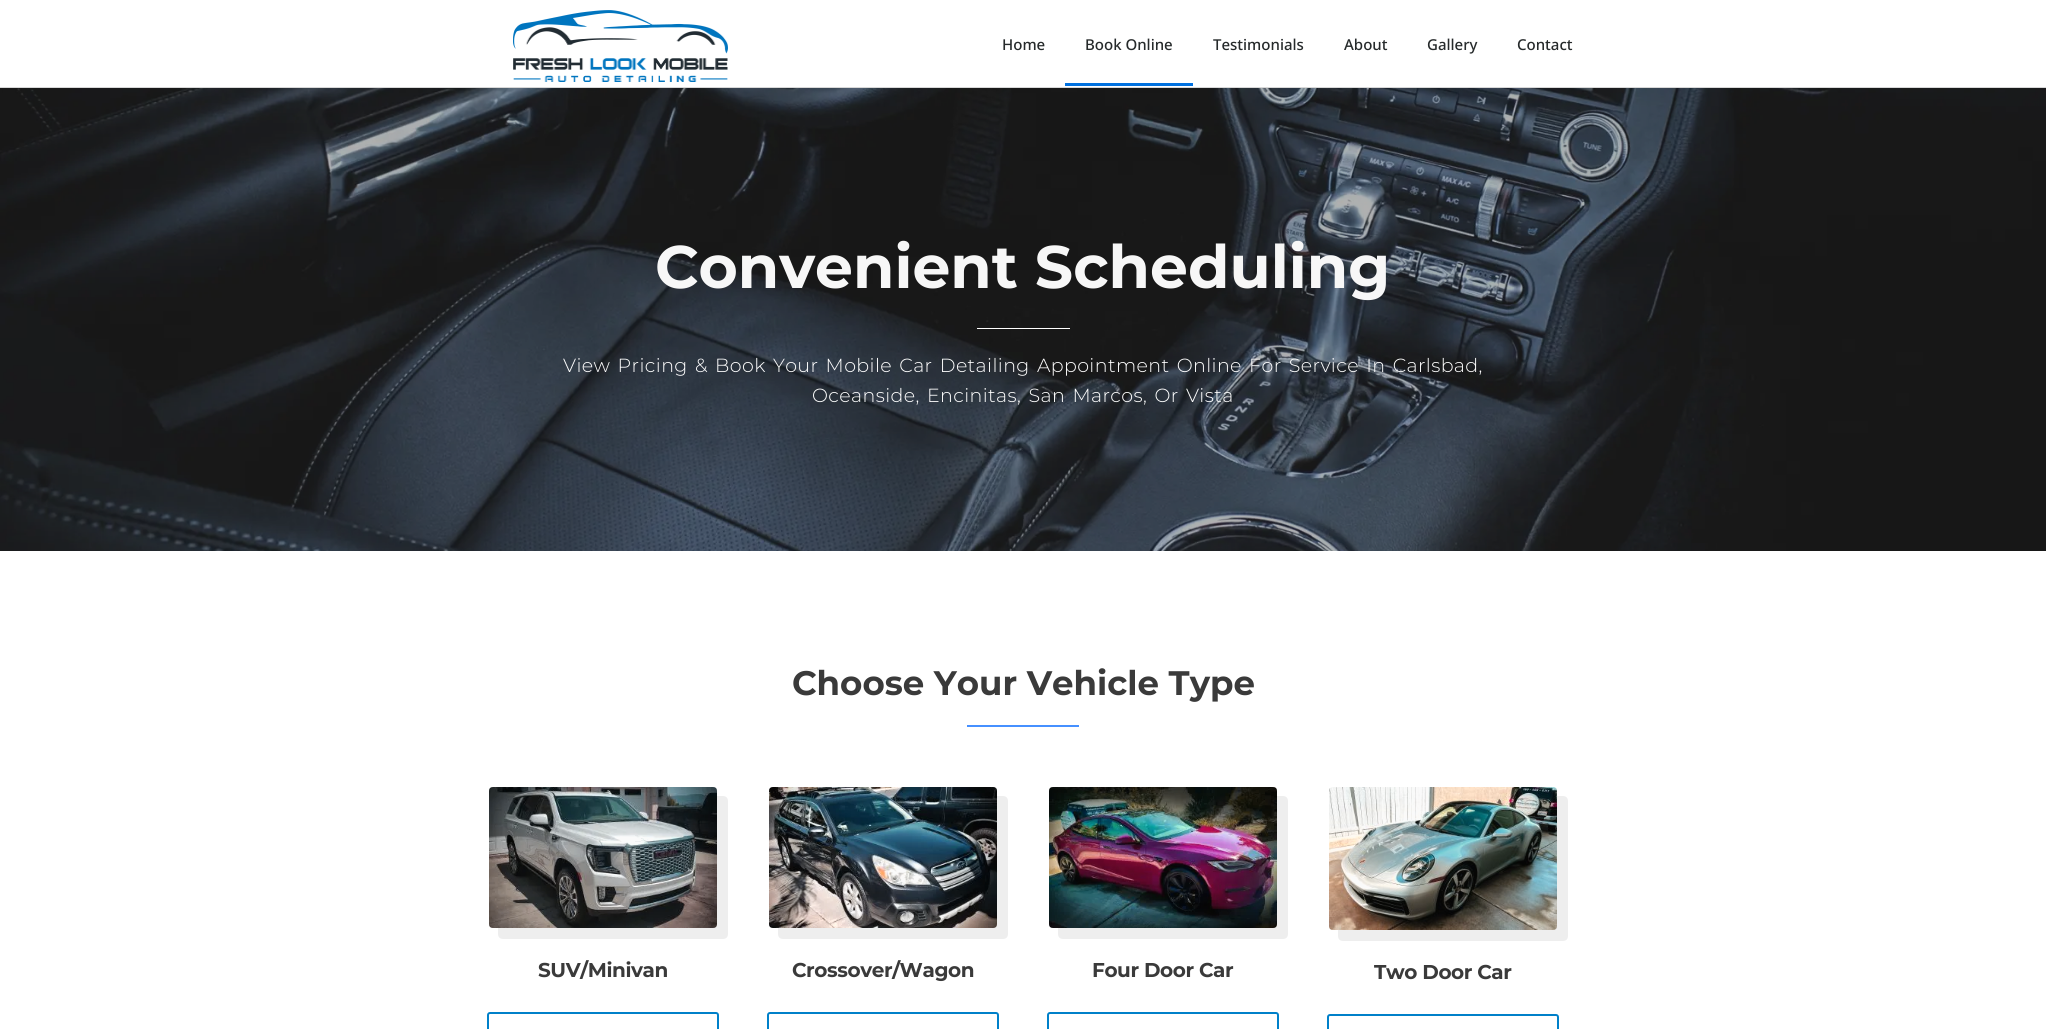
#include <cairo.h>
#include <math.h>
#include <stddef.h>

static cairo_t *c;
static void C(unsigned color){cairo_set_source_rgb(c, (color >> 16) / 255.0, (color >> 8 & 255) / 255.0, (color & 255) / 255.0);}
static void F(const char *family, double size, int italic, int bold){cairo_select_font_face(c, family, italic ? CAIRO_FONT_SLANT_ITALIC : CAIRO_FONT_SLANT_NORMAL,bold ? CAIRO_FONT_WEIGHT_BOLD : CAIRO_FONT_WEIGHT_NORMAL);cairo_set_font_size(c, size);}
static void T(double x, double y, const char *s){cairo_move_to(c, x, y);cairo_show_text(c, s);}
static void L(double x, double y, const char *s, double letter, double word){cairo_move_to(c, x, y);while (*s) {char ch[5] = {0};int n = 0;do ch[n++] = *s++; while ((*s & 0xC0) == 0x80);cairo_show_text(c, ch);cairo_rel_move_to(c, letter + word * (*ch == ' '), 0);}}
static void R(double x, double y, double w, double h){cairo_rectangle(c, x, y, w, h);cairo_fill(c);}
static void Q(double x, double y, double w, double h, double r){cairo_new_sub_path(c);cairo_arc(c, x + w - r, y + h - r, r, 0, M_PI / 2);cairo_arc(c, x + r, y + h - r, r, M_PI / 2, M_PI);cairo_arc(c, x + r, y + r, r, M_PI, 1.5 * M_PI);cairo_arc(c, x + w - r, y + r, r, 1.5 * M_PI, 2 * M_PI);cairo_close_path(c);}
static void I(const char *path, double x, double y, double w, double h){cairo_surface_t *image = cairo_image_surface_create_from_png(path);cairo_save(c);cairo_set_source_surface(c, image, x, y);cairo_rectangle(c, x, y, w, h);cairo_fill(c);cairo_restore(c);cairo_surface_destroy(image);}
int main(void) {
cairo_surface_t *surface = cairo_image_surface_create(CAIRO_FORMAT_RGB24, 2046, 1029);
c = cairo_create(surface);
cairo_font_options_t *options = cairo_font_options_create();
cairo_font_options_set_hint_metrics(options, CAIRO_HINT_METRICS_OFF);
cairo_font_options_set_hint_style(options, CAIRO_HINT_STYLE_NONE);
cairo_set_font_options(c, options);
cairo_set_miter_limit(c, 4);
C(0xffffff);
cairo_paint(c);
C(0xd8d8d8);
R(0,87,2046,1);
I("1.png",513,10,215,72);
F("Noto Sans Medium",15,0,0);
C(0x262a2b);
T(1002,50,"Home");
T(1085,50,"Book Online");
C(0x0071e0);
R(1065,83,128,3);
C(0x262a2b);
T(1213,50,"Testimonials");
T(1344,50,"About");
T(1427,50,"Gallery");
T(1517,50,"Contact");
I("2.png",0,88,2046,463);
F("Montserrat",60,0,1);
C(0xf7f7f7);
T(655,288,"Convenient Scheduling");
C(0xffffff);
R(977,328,93,1);
F("Montserrat Light",19,0,0);
L(563,372,"View Pricing & Book Your Mobile Car Detailing Appointment Online For Service In Carlsbad,",.4,2);
L(812,402,"Oceanside, Encinitas, San Marcos, Or Vista",.4,2);
F("Montserrat",34,0,1);
C(0x3a3a3a);
T(792,695,"Choose Your Vehicle Type");
C(0x4690ff);
R(967,725,112,2);
C(0xeeeeee);
cairo_new_path(c);
cairo_move_to(c,498,928);
cairo_line_to(c,498,934);
cairo_curve_to(c,498,937,500,939,503,939);
cairo_line_to(c,723,939);
cairo_curve_to(c,726,939,728,937,728,934);
cairo_line_to(c,728,801);
cairo_curve_to(c,728,798,726,796,723,796);
cairo_line_to(c,717,796);
cairo_line_to(c,717,924);
cairo_curve_to(c,717,926,715,928,713,928);
cairo_close_path(c);
cairo_fill(c);
I("3.png",489,787,228,141);
F("Montserrat",20,0,1);
C(0x3a3a3a);
L(538,977,"SUV/Minivan",-.4,0);
Q(488,1013,230,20,2);
C(0x0080c9);
cairo_stroke(c);
C(0xeeeeee);
cairo_new_path(c);
cairo_move_to(c,778,928);
cairo_line_to(c,778,934);
cairo_curve_to(c,778,937,780,939,783,939);
cairo_line_to(c,1003,939);
cairo_curve_to(c,1006,939,1008,937,1008,934);
cairo_line_to(c,1008,801);
cairo_curve_to(c,1008,798,1006,796,1003,796);
cairo_line_to(c,997,796);
cairo_line_to(c,997,924);
cairo_curve_to(c,997,926,995,928,993,928);
cairo_close_path(c);
cairo_fill(c);
I("4.png",769,787,228,141);
C(0x3a3a3a);
L(792,977,"Crossover/Wagon",-.4,0);
Q(768,1013,230,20,2);
C(0x0080c9);
cairo_stroke(c);
C(0xeeeeee);
cairo_new_path(c);
cairo_move_to(c,1058,928);
cairo_line_to(c,1058,934);
cairo_curve_to(c,1058,937,1060,939,1063,939);
cairo_line_to(c,1283,939);
cairo_curve_to(c,1286,939,1288,937,1288,934);
cairo_line_to(c,1288,801);
cairo_curve_to(c,1288,798,1286,796,1283,796);
cairo_line_to(c,1277,796);
cairo_line_to(c,1277,924);
cairo_curve_to(c,1277,926,1275,928,1273,928);
cairo_close_path(c);
cairo_fill(c);
I("5.png",1049,787,228,141);
C(0x3a3a3a);
L(1092,977,"Four Door Car",-.4,0);
Q(1048,1013,230,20,2);
C(0x0080c9);
cairo_stroke(c);
C(0xeeeeee);
cairo_new_path(c);
cairo_move_to(c,1338,930);
cairo_line_to(c,1338,936);
cairo_curve_to(c,1338,939,1340,941,1343,941);
cairo_line_to(c,1563,941);
cairo_curve_to(c,1566,941,1568,939,1568,936);
cairo_line_to(c,1568,801);
cairo_curve_to(c,1568,798,1566,796,1563,796);
cairo_line_to(c,1557,796);
cairo_line_to(c,1557,926);
cairo_curve_to(c,1557,928,1555,930,1553,930);
cairo_close_path(c);
cairo_fill(c);
I("6.png",1329,787,228,143);
C(0x3a3a3a);
L(1374,979,"Two Door Car",-.4,0);
Q(1328,1015,230,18,2);
C(0x0080c9);
cairo_stroke(c);
cairo_surface_write_to_png(surface, "o.png");
cairo_font_options_destroy(options);
cairo_destroy(c);
cairo_surface_destroy(surface);
return 0;
}
